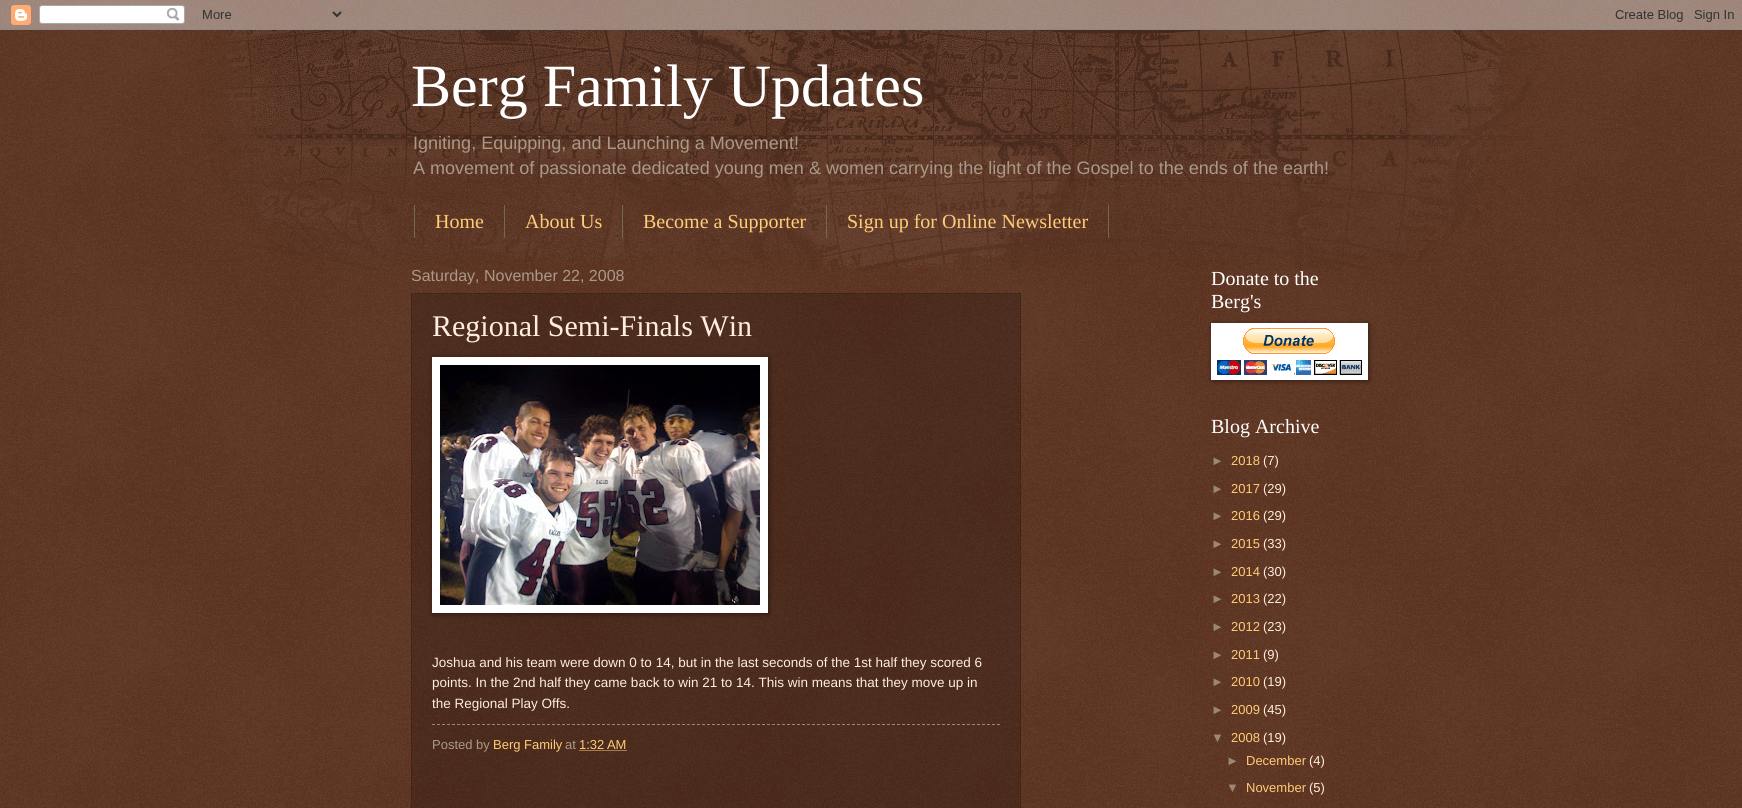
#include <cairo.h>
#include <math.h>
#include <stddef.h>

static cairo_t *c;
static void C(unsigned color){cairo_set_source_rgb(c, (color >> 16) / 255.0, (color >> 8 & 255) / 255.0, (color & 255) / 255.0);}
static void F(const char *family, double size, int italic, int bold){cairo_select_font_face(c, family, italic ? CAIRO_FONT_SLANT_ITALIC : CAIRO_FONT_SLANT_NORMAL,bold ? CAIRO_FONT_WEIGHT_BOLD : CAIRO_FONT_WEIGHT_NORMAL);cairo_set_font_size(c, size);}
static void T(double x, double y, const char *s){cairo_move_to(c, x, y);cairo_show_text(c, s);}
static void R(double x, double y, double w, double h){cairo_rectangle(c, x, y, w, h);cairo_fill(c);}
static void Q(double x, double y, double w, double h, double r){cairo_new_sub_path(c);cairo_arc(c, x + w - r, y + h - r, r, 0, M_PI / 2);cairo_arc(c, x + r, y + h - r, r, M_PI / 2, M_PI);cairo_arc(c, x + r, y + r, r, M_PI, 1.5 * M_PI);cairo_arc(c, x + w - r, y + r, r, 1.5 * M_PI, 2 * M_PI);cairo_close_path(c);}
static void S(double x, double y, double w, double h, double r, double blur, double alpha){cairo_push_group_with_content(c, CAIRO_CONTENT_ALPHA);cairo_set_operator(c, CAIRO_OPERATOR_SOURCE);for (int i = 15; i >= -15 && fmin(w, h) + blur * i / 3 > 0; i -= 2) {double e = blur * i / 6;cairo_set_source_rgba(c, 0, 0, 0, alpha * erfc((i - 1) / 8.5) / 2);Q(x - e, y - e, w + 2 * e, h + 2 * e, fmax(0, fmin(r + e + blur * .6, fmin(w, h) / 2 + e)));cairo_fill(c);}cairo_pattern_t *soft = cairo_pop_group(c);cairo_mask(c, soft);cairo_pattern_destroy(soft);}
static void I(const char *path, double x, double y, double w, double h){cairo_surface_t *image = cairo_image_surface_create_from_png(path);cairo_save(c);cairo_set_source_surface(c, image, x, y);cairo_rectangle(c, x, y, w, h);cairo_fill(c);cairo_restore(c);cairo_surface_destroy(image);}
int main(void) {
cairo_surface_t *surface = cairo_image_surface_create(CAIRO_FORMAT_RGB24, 1742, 808);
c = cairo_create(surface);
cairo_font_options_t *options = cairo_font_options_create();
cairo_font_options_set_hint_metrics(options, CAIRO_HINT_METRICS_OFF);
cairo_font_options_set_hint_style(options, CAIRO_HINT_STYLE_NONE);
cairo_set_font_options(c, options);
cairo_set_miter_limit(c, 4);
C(0x441500);
cairo_paint(c);
I("1.png",0,0,1742,808);
I("2.png",0,0,1742,30);
I("3.png",195,30,1352,240);
F("Liberation Serif",60,0,0);
C(0xffffff);
T(411,106,"Berg Family Updates");
F("Liberation Sans",18.03,0,0);
C(0xaa9988);
T(413,149,"Igniting, Equipping, and Launching a Movement!");
T(413,174,"A movement of passionate dedicated young men & women carrying the light of the Gospel to the ends of the earth!");
C(0x776655);
R(504,205,1,33);
R(414,205,1,33);
F("Liberation Serif",20,0,0);
C(0xffcc77);
T(435,228,"Home");
C(0x776655);
R(622,205,1,33);
C(0xffcc77);
T(525,228,"About Us");
C(0x776655);
R(826,205,1,33);
C(0xffcc77);
T(643,228,"Become a Supporter");
C(0x776655);
R(1108,205,1,33);
C(0xffcc77);
T(847,228,"Sign up for Online Newsletter");
F("Liberation Sans",16,0,0);
C(0xaa9988);
T(411,281,"Saturday, November 22, 2008");
cairo_set_source_rgba(c,0,0,0,0.2);
R(411,293,610,515);
cairo_new_path(c);
cairo_move_to(c,411,293.5);
cairo_line_to(c,1021,293.5);
C(0x332211);
cairo_set_line_width(c,1);
cairo_set_dash(c,(double[]){1,1},2,0);
cairo_stroke(c);
cairo_new_path(c);
cairo_move_to(c,1020.5,293);
cairo_line_to(c,1020.5,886);
cairo_stroke(c);
cairo_new_path(c);
cairo_move_to(c,411.5,293);
cairo_line_to(c,411.5,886);
cairo_stroke(c);
F("Liberation Serif",30,0,0);
C(0xffeedd);
T(432,336,"Regional Semi-Finals Win");
C(0x000000);
S(433,358,336,256,0,2.5,.5);
C(0xffffff);
R(432,357,336,256);
I("4.png",440,365,320,240);
F("Liberation Sans",13.5,0,0);
C(0xffeedd);
T(432,667,"Joshua and his team were down 0 to 14, but in the last seconds of the 1st half they scored 6");
T(432,687,"points. In the 2nd half they came back to win 21 to 14. This win means that they move up in");
T(432,708,"the Regional Play Offs.");
cairo_new_path(c);
cairo_move_to(c,432,724.5);
cairo_line_to(c,1000,724.5);
C(0x998877);
cairo_set_dash(c,(double[]){3,2},2,0);
cairo_stroke(c);
F("Liberation Sans",13,0,0);
C(0xaa9988);
T(432,749,"Posted by");
C(0xffcc77);
T(493,749,"Berg Family");
C(0xaa9988);
T(565,749,"at");
C(0xffcc77);
T(579,749,"1:32 AM");
cairo_new_path(c);
cairo_move_to(c,579.5,750.5);
cairo_line_to(c,626.5,750.5);
cairo_set_dash(c,(double[]){1,1},2,0);
cairo_stroke(c);
F("Liberation Serif",20,0,0);
C(0xffffff);
T(1211,285,"Donate to the");
T(1211,308,"Berg's");
C(0x000000);
S(1212,324,157,57,0,2.5,.5);
C(0xffffff);
R(1211,323,157,57);
I("5.png",1217,328,145,47);
T(1211,433,"Blog Archive");
F("Liberation Sans",13,0,0);
C(0x998877);
T(1211,465,"►");
C(0xffcc77);
T(1231,465,"2018");
C(0xffeedd);
T(1263,465,"(7)");
C(0x998877);
T(1211,493,"►");
C(0xffcc77);
T(1231,493,"2017");
C(0xffeedd);
T(1263,493,"(29)");
C(0x998877);
T(1211,520,"►");
C(0xffcc77);
T(1231,520,"2016");
C(0xffeedd);
T(1263,520,"(29)");
C(0x998877);
T(1211,548,"►");
C(0xffcc77);
T(1231,548,"2015");
C(0xffeedd);
T(1263,548,"(33)");
C(0x998877);
T(1211,576,"►");
C(0xffcc77);
T(1231,576,"2014");
C(0xffeedd);
T(1263,576,"(30)");
C(0x998877);
T(1211,603,"►");
C(0xffcc77);
T(1231,603,"2013");
C(0xffeedd);
T(1263,603,"(22)");
C(0x998877);
T(1211,631,"►");
C(0xffcc77);
T(1231,631,"2012");
C(0xffeedd);
T(1263,631,"(23)");
C(0x998877);
T(1211,659,"►");
C(0xffcc77);
T(1231,659,"2011");
C(0xffeedd);
T(1263,659,"(9)");
C(0x998877);
T(1211,686,"►");
C(0xffcc77);
T(1231,686,"2010");
C(0xffeedd);
T(1263,686,"(19)");
C(0x998877);
T(1211,714,"►");
C(0xffcc77);
T(1231,714,"2009");
C(0xffeedd);
T(1263,714,"(45)");
C(0x998877);
T(1211,742,"▼");
C(0xffcc77);
T(1231,742,"2008");
C(0xffeedd);
T(1263,742,"(19)");
C(0x998877);
T(1226,765,"►");
C(0xffcc77);
T(1246,765,"December");
C(0xffeedd);
T(1309,765,"(4)");
C(0x998877);
T(1226,792,"▼");
C(0xffcc77);
T(1246,792,"November");
C(0xffeedd);
T(1309,792,"(5)");
cairo_surface_write_to_png(surface, "o.png");
cairo_font_options_destroy(options);
cairo_destroy(c);
cairo_surface_destroy(surface);
return 0;
}
